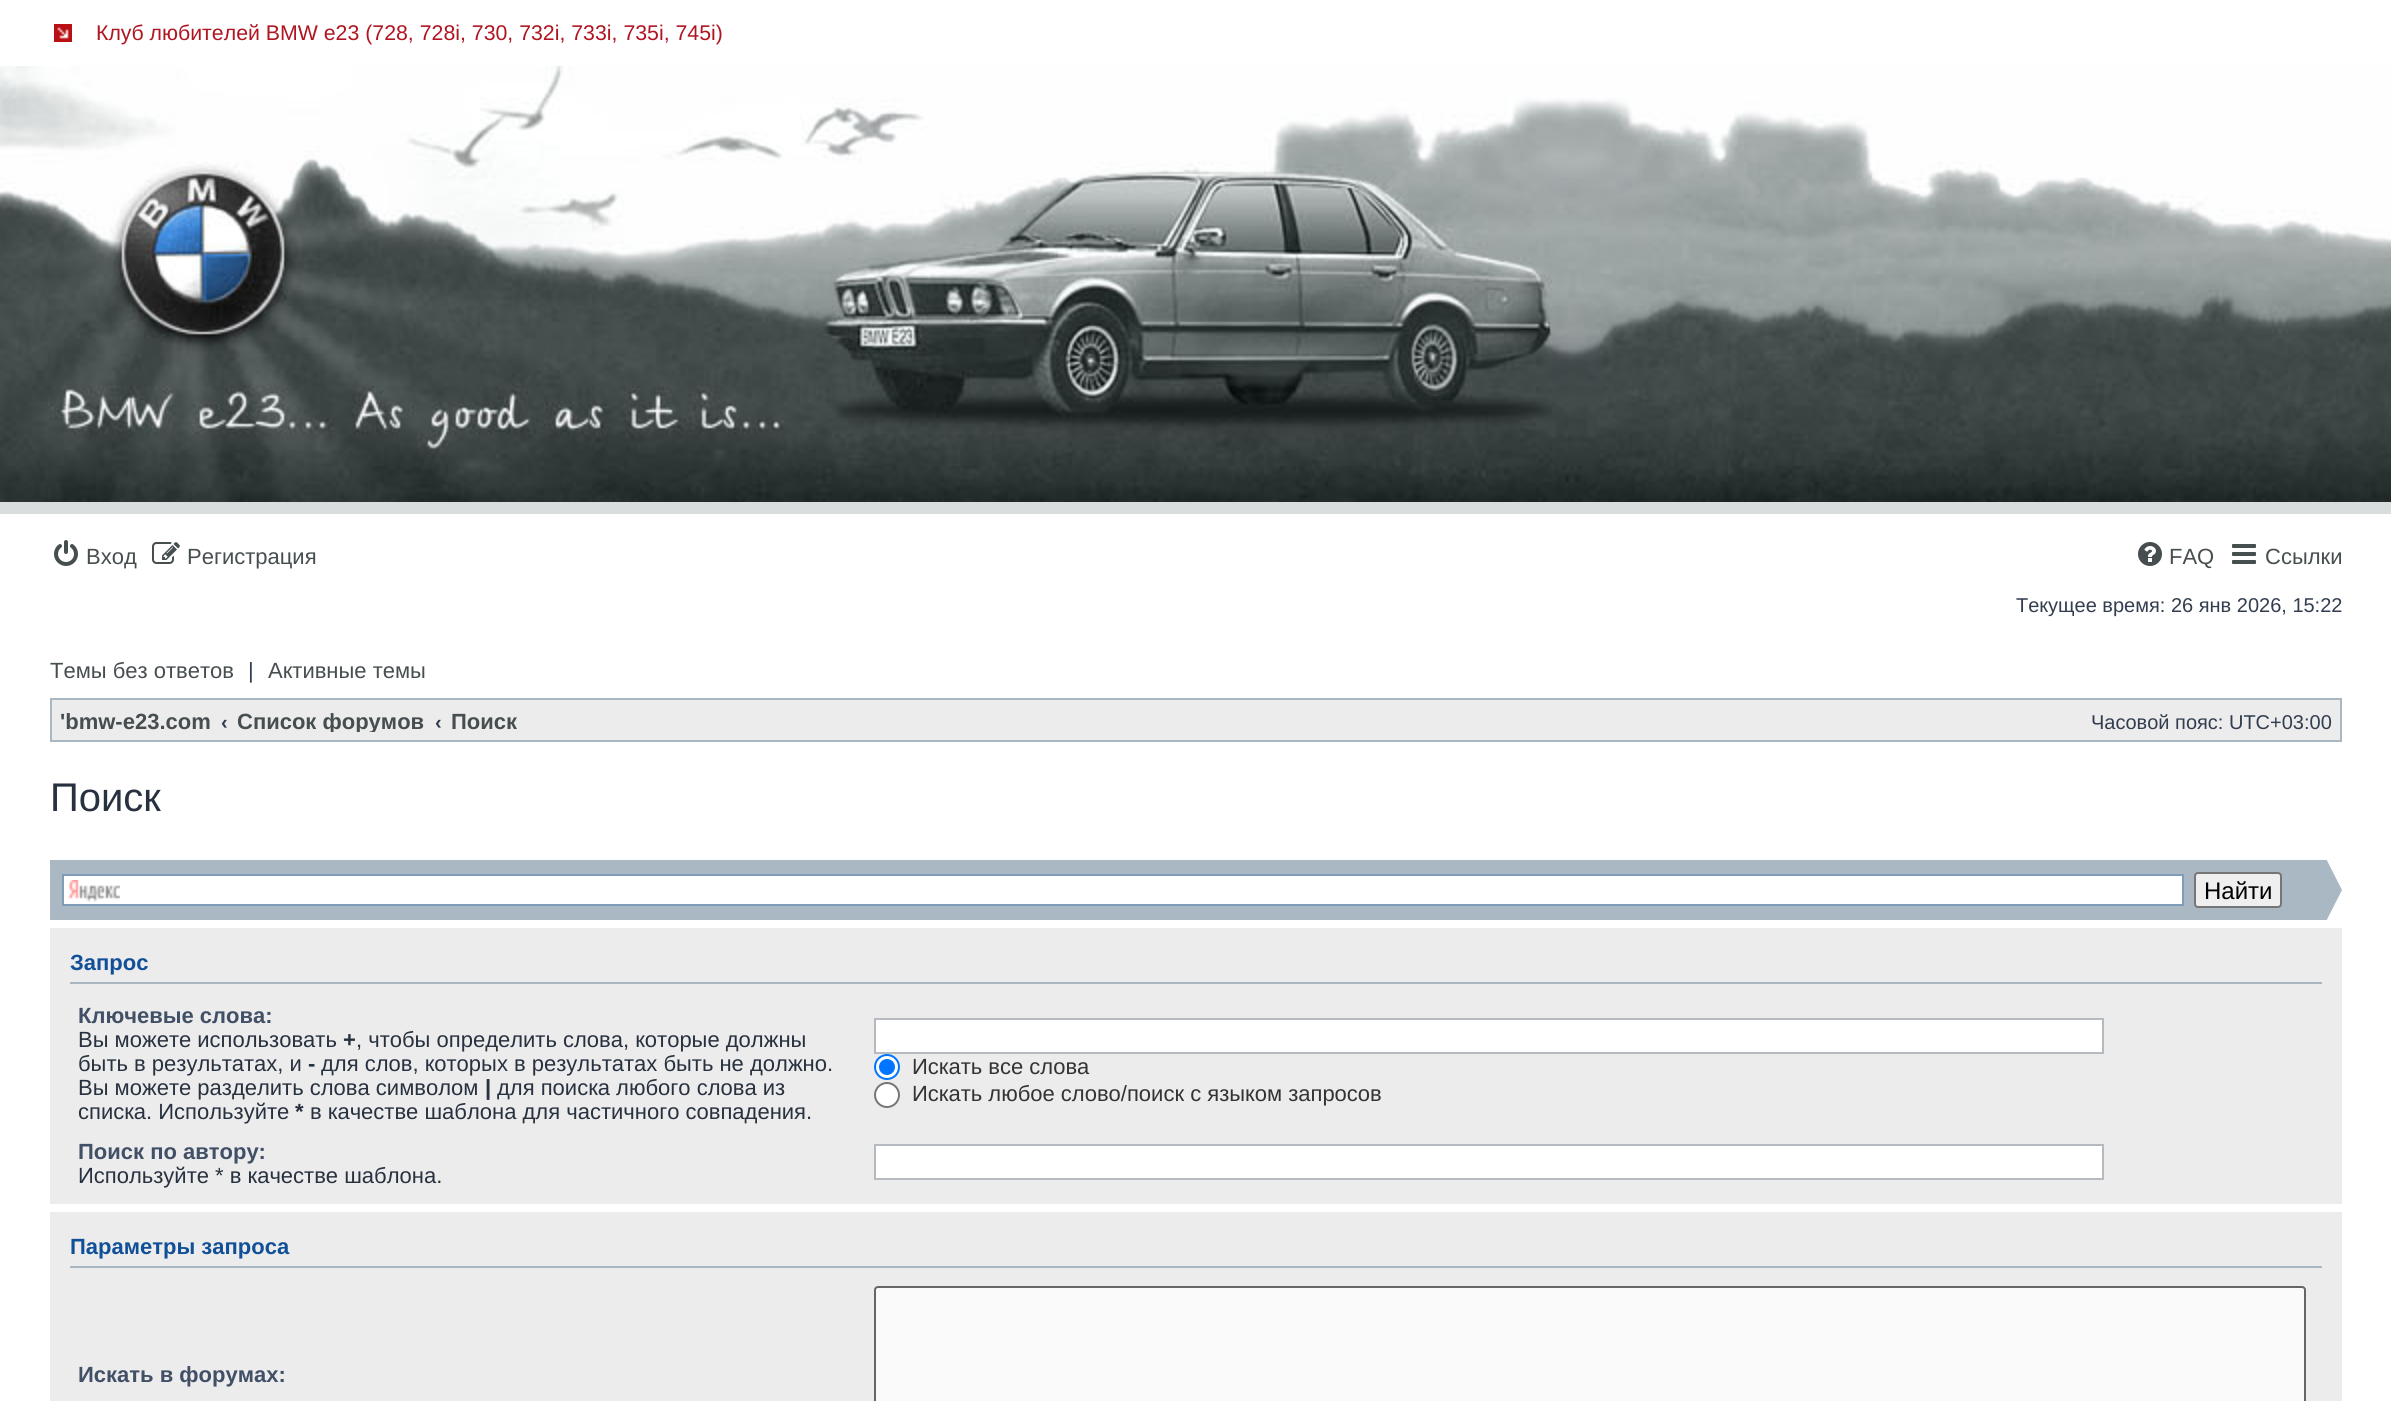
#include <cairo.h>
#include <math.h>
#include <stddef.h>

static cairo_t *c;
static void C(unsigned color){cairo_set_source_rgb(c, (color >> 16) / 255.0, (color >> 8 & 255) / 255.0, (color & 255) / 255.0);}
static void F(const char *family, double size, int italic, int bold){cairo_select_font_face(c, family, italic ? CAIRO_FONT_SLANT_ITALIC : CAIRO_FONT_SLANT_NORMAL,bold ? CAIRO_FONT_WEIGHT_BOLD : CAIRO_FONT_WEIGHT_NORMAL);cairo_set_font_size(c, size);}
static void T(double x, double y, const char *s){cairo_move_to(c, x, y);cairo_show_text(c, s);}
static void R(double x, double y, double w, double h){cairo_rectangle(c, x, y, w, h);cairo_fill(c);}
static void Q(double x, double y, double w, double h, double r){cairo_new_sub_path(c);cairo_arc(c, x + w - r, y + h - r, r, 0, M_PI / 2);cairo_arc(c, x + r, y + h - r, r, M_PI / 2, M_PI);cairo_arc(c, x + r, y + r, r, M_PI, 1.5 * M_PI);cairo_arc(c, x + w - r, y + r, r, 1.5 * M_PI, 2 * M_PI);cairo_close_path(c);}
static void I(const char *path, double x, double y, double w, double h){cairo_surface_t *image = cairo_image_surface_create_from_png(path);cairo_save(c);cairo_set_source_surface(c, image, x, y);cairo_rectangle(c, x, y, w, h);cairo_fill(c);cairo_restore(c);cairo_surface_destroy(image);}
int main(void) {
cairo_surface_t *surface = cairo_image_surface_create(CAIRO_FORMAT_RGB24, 2391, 1401);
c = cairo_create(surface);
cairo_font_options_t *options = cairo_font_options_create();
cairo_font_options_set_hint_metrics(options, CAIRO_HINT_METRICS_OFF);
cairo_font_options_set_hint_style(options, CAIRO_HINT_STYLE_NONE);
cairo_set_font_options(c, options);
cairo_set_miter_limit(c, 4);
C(0xffffff);
cairo_paint(c);
I("1.png",0,66,2391,436);
C(0xdadddd);
R(0,502,2391,12);
I("2.png",54,24,18,18);
F("Liberation Sans",21.3,0,0);
C(0xb01521);
T(96,40,"Клуб любителей BMW e23 (728, 728i, 730, 732i, 733i, 735i, 745i)");
I("3.png",54,540,24,26);
F("Liberation Sans",22,0,0);
C(0x464e50);
T(86,564,"Вход");
I("4.png",152,542,28,22);
T(187,564,"Регистрация");
I("5.png",2138,542,24,24);
T(2169,564,"FAQ");
I("6.png",2232,544,24,20);
T(2265,564,"Ссылки");
F("Liberation Sans",20,0,0);
C(0x323d4f);
T(2016,612,"Текущее время: 26 янв 2026, 15:22");
F("Liberation Sans",22,0,0);
C(0x464e50);
T(50,678,"Темы без ответов");
C(0x323d4f);
T(248,678,"|");
C(0x464e50);
T(268,678,"Активные темы");
C(0xececec);
cairo_rectangle(c,51,699,2290,42);
cairo_fill_preserve(c);
C(0xa9b8c2);
cairo_stroke(c);
F("Liberation Sans",22,0,1);
C(0x464e50);
T(60,729,"'bmw-e23.com");
F("Liberation Sans",20,0,1);
C(0x323d4f);
T(221,729,"‹");
cairo_save(c);
cairo_rectangle(c,238,710,186,22);
cairo_clip(c);
F("Liberation Sans",22,0,1);
C(0x464e50);
T(237,729,"Список форумов");
cairo_restore(c);
T(435,729,"‹");
F("Liberation Sans",22,0,1);
C(0x464e50);
T(451,729,"Поиск");
F("Liberation Sans",20,0,0);
C(0x323d4f);
T(2091,729,"Часовой пояс: UTC+03:00");
F("Liberation Sans",40,0,0);
C(0x28313f);
T(50,811,"Поиск");
C(0xa9b8c2);
R(50,860,2232,60);
C(0xffffff);
R(64,876,2118,28);
I("7.png",68,880,52,22);
cairo_rectangle(c,63,875,2120,30);
C(0x7f9db9);
cairo_stroke(c);
C(0xefefef);
Q(2195,873,86,34,3);
cairo_fill_preserve(c);
C(0x767676);
cairo_stroke(c);
F("Liberation Sans",24,0,0);
C(0x000000);
T(2204,899,"Найти");
cairo_save(c);
cairo_rectangle(c,2282,860,60,60);
cairo_clip(c);
C(0xa9b8c2);
cairo_new_path(c);
cairo_move_to(c,2282,1008);
cairo_line_to(c,2282,772);
cairo_line_to(c,2342,890);
cairo_close_path(c);
cairo_fill(c);
cairo_restore(c);
C(0xececec);
R(50,928,2292,276);
C(0xa9b8c2);
R(70,982,2252,2);
F("Liberation Sans",22,0,1);
C(0x115098);
T(70,970,"Запрос");
C(0x425067);
T(78,1023,"Ключевые слова:");
F("Liberation Sans",22,0,0);
C(0x28313f);
T(78,1047,"Вы можете использовать");
F("Liberation Sans",22,0,1);
T(343,1047,"+");
F("Liberation Sans",22,0,0);
T(356,1047,", чтобы определить слова, которые должны");
T(78,1071,"быть в результатах, и");
F("Liberation Sans",22,0,1);
T(308,1071,"-");
F("Liberation Sans",22,0,0);
T(321,1071,"для слов, которых в результатах быть не должно.");
T(78,1095,"Вы можете разделить слова символом");
F("Liberation Sans",22,0,1);
T(485,1095,"|");
F("Liberation Sans",22,0,0);
T(497,1095,"для поиска любого слова из");
T(78,1119,"списка. Используйте");
F("Liberation Sans",22,0,1);
T(295,1119,"*");
F("Liberation Sans",22,0,0);
T(310,1119,"в качестве шаблона для частичного совпадения.");
C(0xffffff);
cairo_rectangle(c,875,1019,1228,34);
cairo_fill_preserve(c);
C(0xb4bac0);
cairo_stroke(c);
C(0xffffff);
cairo_arc(c,887,1067,12,0,2 * M_PI);
cairo_fill_preserve(c);
C(0x0075ff);
cairo_stroke(c);
cairo_arc(c,887,1067,8,0,2 * M_PI);
cairo_fill(c);
C(0x333333);
T(912,1074,"Искать все слова");
C(0xffffff);
cairo_new_path(c);
cairo_arc(c,887,1095,12,0,2 * M_PI);
cairo_fill_preserve(c);
C(0x767676);
cairo_stroke(c);
C(0x333333);
T(912,1101,"Искать любое слово/поиск с языком запросов");
F("Liberation Sans",22,0,1);
C(0x425067);
T(78,1159,"Поиск по автору:");
F("Liberation Sans",22,0,0);
C(0x28313f);
T(78,1183,"Используйте * в качестве шаблона.");
C(0xffffff);
cairo_rectangle(c,875,1145,1228,34);
cairo_fill_preserve(c);
C(0xb4bac0);
cairo_stroke(c);
C(0xececec);
R(50,1212,2292,189);
C(0xa9b8c2);
R(70,1266,2252,2);
F("Liberation Sans",22,0,1);
C(0x115098);
T(70,1254,"Параметры запроса");
C(0x425067);
T(78,1382,"Искать в форумах:");
C(0xfafafa);
Q(875,1287,1430,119,3);
cairo_fill_preserve(c);
C(0x666666);
cairo_stroke(c);
cairo_surface_write_to_png(surface, "o.png");
cairo_font_options_destroy(options);
cairo_destroy(c);
cairo_surface_destroy(surface);
return 0;
}
